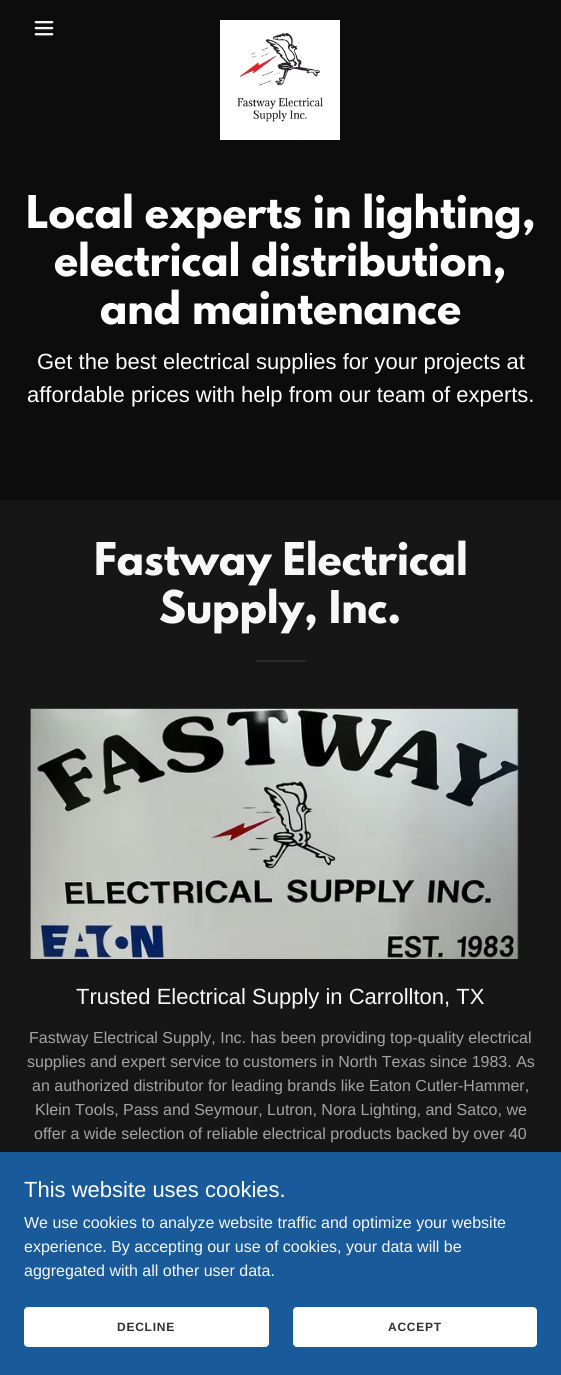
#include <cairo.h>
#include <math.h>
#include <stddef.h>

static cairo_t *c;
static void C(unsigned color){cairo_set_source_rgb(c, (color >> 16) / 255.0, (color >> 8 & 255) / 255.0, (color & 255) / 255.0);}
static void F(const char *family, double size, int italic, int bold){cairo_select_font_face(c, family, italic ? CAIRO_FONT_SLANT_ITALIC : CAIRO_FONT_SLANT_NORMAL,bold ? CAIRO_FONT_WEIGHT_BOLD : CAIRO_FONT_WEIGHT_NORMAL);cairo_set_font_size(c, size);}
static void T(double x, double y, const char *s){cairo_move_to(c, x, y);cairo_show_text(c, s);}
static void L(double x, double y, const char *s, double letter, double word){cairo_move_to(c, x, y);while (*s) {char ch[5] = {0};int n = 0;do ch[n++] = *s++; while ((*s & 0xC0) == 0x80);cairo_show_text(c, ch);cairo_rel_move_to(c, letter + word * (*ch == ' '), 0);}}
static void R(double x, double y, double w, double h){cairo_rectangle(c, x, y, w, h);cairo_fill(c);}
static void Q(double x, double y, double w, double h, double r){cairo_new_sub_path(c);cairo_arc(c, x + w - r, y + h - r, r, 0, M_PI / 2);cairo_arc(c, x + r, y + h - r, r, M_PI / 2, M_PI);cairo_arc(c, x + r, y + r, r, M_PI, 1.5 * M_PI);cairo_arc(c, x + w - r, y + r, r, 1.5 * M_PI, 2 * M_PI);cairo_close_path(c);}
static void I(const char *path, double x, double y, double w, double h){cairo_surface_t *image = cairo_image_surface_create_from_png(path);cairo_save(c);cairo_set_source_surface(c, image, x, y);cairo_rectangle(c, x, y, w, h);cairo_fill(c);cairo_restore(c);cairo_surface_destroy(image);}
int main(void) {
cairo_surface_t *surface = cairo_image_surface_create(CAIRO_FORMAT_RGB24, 561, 1375);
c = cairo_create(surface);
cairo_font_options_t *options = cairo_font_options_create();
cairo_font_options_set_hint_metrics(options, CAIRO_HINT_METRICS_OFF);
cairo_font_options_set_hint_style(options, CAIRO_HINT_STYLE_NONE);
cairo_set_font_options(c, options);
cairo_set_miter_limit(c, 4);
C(0x161616);
cairo_paint(c);
C(0x0c0c0c);
R(0,0,561,500);
I("1.png",34,21,20,15);
I("2.png",220,20,120,120);
F("League Spartan",40,0,1);
C(0xffffff);
T(26,228,"Local experts in lighting,");
T(54,276,"electrical distribution,");
T(100,324,"and maintenance");
F("Liberation Sans",22,0,0);
T(37,369,"Get the best electrical supplies for your projects at");
T(27,402,"affordable prices with help from our team of experts.");
F("League Spartan",40,0,1);
C(0xf7f7f7);
T(94,575,"Fastway Electrical");
T(159,623,"Supply, Inc.");
C(0x2a2a2a);
R(256,660,50,2);
I("3.png",30,708,489,251);
F("Liberation Sans",22,0,0);
C(0xf7f7f7);
T(76,1004,"Trusted Electrical Supply in Carrollton, TX");
F("Liberation Sans",16,0,0);
C(0xa4a4a4);
T(29,1043,"Fastway Electrical Supply, Inc. has been providing top-quality electrical");
T(27,1067,"supplies and expert service to customers in North Texas since 1983. As");
T(32,1091,"an authorized distributor for leading brands like Eaton Cutler-Hammer,");
T(35,1115,"Klein Tools, Pass and Seymour, Lutron, Nora Lighting, and Satco, we");
T(34,1139,"offer a wide selection of reliable electrical products backed by over 40");
C(0x195a9b);
R(0,1152,561,223);
F("Liberation Sans",22,0,0);
C(0xffffff);
T(24,1197,"This website uses cookies.");
F("Liberation Sans",16,0,0);
C(0xf7f7f7);
T(24,1228,"We use cookies to analyze website traffic and optimize your website");
T(24,1252,"experience. By accepting our use of cookies, your data will be");
T(24,1276,"aggregated with all other user data.");
C(0xffffff);
Q(24,1307,245,40,4);
cairo_fill(c);
F("Liberation Sans",12,0,1);
C(0x303030);
L(117,1331,"DECLINE",.75,0);
C(0xffffff);
Q(293,1307,244,40,4);
cairo_fill(c);
C(0x303030);
L(388,1331,"ACCEPT",.75,0);
cairo_surface_write_to_png(surface, "o.png");
cairo_font_options_destroy(options);
cairo_destroy(c);
cairo_surface_destroy(surface);
return 0;
}
